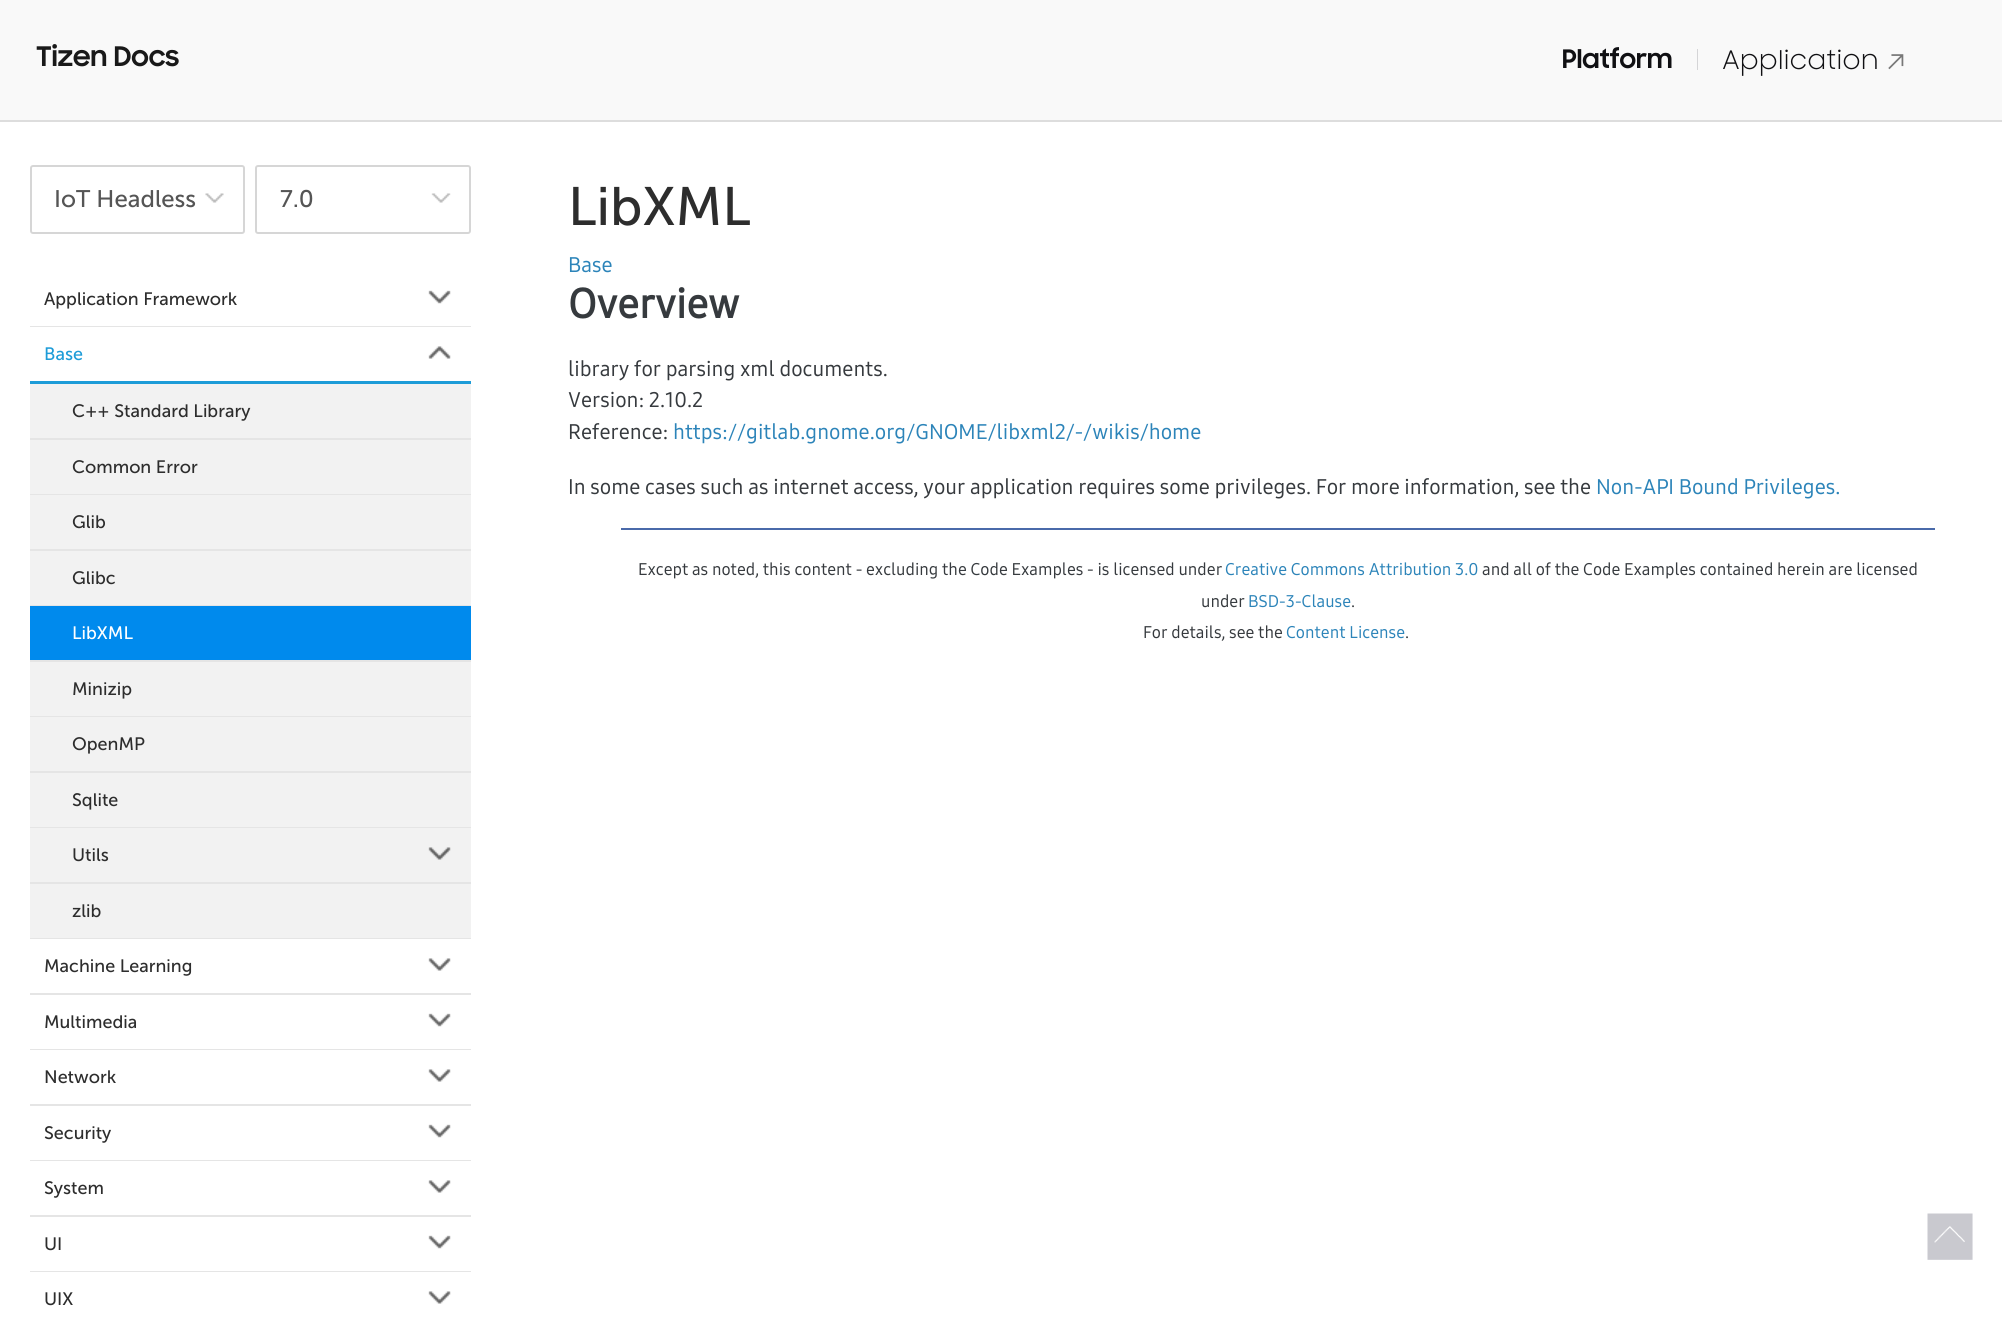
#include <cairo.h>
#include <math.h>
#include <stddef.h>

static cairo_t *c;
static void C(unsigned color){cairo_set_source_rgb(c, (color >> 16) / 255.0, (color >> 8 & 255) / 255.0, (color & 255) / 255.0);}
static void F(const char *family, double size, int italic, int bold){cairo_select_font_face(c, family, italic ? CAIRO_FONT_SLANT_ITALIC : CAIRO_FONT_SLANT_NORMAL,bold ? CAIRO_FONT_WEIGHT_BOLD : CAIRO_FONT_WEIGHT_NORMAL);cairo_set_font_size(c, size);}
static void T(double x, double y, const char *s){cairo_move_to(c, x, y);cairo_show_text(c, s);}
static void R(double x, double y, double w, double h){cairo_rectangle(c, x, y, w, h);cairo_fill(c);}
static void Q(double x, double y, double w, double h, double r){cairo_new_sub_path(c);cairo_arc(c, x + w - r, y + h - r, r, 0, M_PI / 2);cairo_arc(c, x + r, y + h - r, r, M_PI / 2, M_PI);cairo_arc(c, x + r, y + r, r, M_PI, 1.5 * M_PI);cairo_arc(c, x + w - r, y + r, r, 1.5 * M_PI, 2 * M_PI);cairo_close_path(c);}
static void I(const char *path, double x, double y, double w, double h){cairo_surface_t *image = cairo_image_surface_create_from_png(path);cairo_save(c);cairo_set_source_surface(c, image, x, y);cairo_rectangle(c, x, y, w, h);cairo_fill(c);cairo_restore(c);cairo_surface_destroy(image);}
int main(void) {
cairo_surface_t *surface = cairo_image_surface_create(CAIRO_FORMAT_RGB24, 2002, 1319);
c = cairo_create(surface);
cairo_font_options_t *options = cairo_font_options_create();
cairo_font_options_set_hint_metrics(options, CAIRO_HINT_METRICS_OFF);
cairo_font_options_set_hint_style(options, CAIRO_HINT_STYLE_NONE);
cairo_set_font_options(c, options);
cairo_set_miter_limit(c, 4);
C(0xffffff);
cairo_paint(c);
C(0xf9f9f9);
R(0,0,2002,120);
C(0xdddddd);
R(0,120,2002,2);
F("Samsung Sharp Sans",27,0,1);
C(0x191919);
T(36,66,"Tizen Docs");
F("Samsung Sharp Sans",25.5,0,1);
C(0x101013);
T(1562,68,"Platform");
C(0xd5d5d7);
R(1697,49,1,21);
I("1.png",1723,49,154,27);
I("2.png",1888,54,16,16);
Q(31,166,213,67,2);
C(0xd6d6d6);
cairo_stroke(c);
F("Museo Sans",24,0,0);
C(0x555555);
T(54,207,"IoT Headless");
I("3.png",205,193,19,10);
Q(256,166,214,67,2);
C(0xd6d6d6);
cairo_stroke(c);
C(0x555555);
T(280,207,"7.0");
I("4.png",431,193,20,10);
C(0xe5e5e5);
R(30,326,441,1);
F("Museo Sans",18,0,0);
C(0x2d2d2d);
T(44,305,"Application Framework");
I("5.png",428,290,23,14);
C(0x1e9cd8);
R(30,381,441,3);
T(44,360,"Base");
I("6.png",428,346,23,13);
C(0xf2f2f2);
R(30,384,441,54);
C(0xe5e5e5);
R(30,438,441,2);
C(0x2d2d2d);
T(72,417,"C++ Standard Library");
C(0xf2f2f2);
R(30,440,441,54);
C(0xe5e5e5);
R(30,494,441,1);
C(0x2d2d2d);
T(72,473,"Common Error");
C(0xf2f2f2);
R(30,495,441,54);
C(0xe5e5e5);
R(30,549,441,2);
C(0x2d2d2d);
T(72,528,"Glib");
C(0xf2f2f2);
R(30,551,441,54);
C(0xe5e5e5);
R(30,605,441,1);
C(0x2d2d2d);
T(72,584,"Glibc");
C(0x008aed);
R(30,606,441,54);
C(0xe5e5e5);
R(30,660,441,2);
C(0xffffff);
T(72,639,"LibXML");
C(0xf2f2f2);
R(30,662,441,54);
C(0xe5e5e5);
R(30,716,441,1);
C(0x2d2d2d);
T(72,695,"Minizip");
C(0xf2f2f2);
R(30,717,441,54);
C(0xe5e5e5);
R(30,771,441,2);
C(0x2d2d2d);
T(72,750,"OpenMP");
C(0xf2f2f2);
R(30,773,441,54);
C(0xe5e5e5);
R(30,827,441,1);
C(0x2d2d2d);
T(72,806,"Sqlite");
C(0xf2f2f2);
R(30,828,441,54);
C(0xe5e5e5);
R(30,882,441,2);
C(0x2d2d2d);
T(72,861,"Utils");
I("7.png",428,847,23,13);
C(0xf2f2f2);
R(30,884,441,54);
C(0xe5e5e5);
R(30,938,441,1);
C(0x2d2d2d);
T(72,917,"zlib");
C(0xe5e5e5);
R(30,993,441,2);
C(0x2d2d2d);
T(44,972,"Machine Learning");
I("8.png",428,958,23,13);
C(0xe5e5e5);
R(30,1049,441,1);
C(0x2d2d2d);
T(44,1028,"Multimedia");
I("5.png",428,1013,23,14);
C(0xe5e5e5);
R(30,1104,441,2);
C(0x2d2d2d);
T(44,1083,"Network");
I("8.png",428,1069,23,13);
C(0xe5e5e5);
R(30,1160,441,1);
C(0x2d2d2d);
T(44,1139,"Security");
I("5.png",428,1124,23,14);
C(0xe5e5e5);
R(30,1215,441,2);
C(0x2d2d2d);
T(44,1194,"System");
I("8.png",428,1180,23,13);
C(0xe5e5e5);
R(30,1271,441,1);
C(0x2d2d2d);
T(44,1250,"UI");
I("5.png",428,1235,23,14);
T(44,1305,"UIX");
I("8.png",428,1291,23,13);
F("Museo Sans",54,0,0);
T(568,225,"LibXML");
F("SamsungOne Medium",21,0,0);
C(0x2c84b9);
T(568,272,"Base");
F("SamsungOne",41,0,1);
C(0x363a3e);
T(568,318,"Overview");
F("SamsungOne Medium",21,0,0);
T(568,376,"library for parsing xml documents.");
T(568,407,"Version: 2.10.2");
T(568,439,"Reference:");
C(0x2c84b9);
T(673,439,"https://gitlab.gnome.org/GNOME/libxml2/-/wikis/home");
C(0x363a3e);
T(568,494,"In some cases such as internet access, your application requires some privileges. For more information, see the");
C(0x2c84b9);
T(1596,494,"Non-API Bound Privileges.");
C(0x4a6aaa);
R(621,528,1314,2);
F("SamsungOne Medium",16.8,0,0);
C(0x363a3e);
T(638,575,"Except as noted, this content - excluding the Code Examples - is licensed under");
C(0x2c84b9);
T(1225,575,"Creative Commons Attribution 3.0");
C(0x363a3e);
T(1482,575,"and all of the Code Examples contained herein are licensed");
T(1201,607,"under");
C(0x2c84b9);
T(1248,607,"BSD-3-Clause");
C(0x363a3e);
T(1351,607,".");
T(1143,638,"For details, see the");
C(0x2c84b9);
T(1286,638,"Content License");
C(0x363a3e);
T(1405,638,".");
I("9.png",1927,1213,46,47);
cairo_surface_write_to_png(surface, "o.png");
cairo_font_options_destroy(options);
cairo_destroy(c);
cairo_surface_destroy(surface);
return 0;
}
